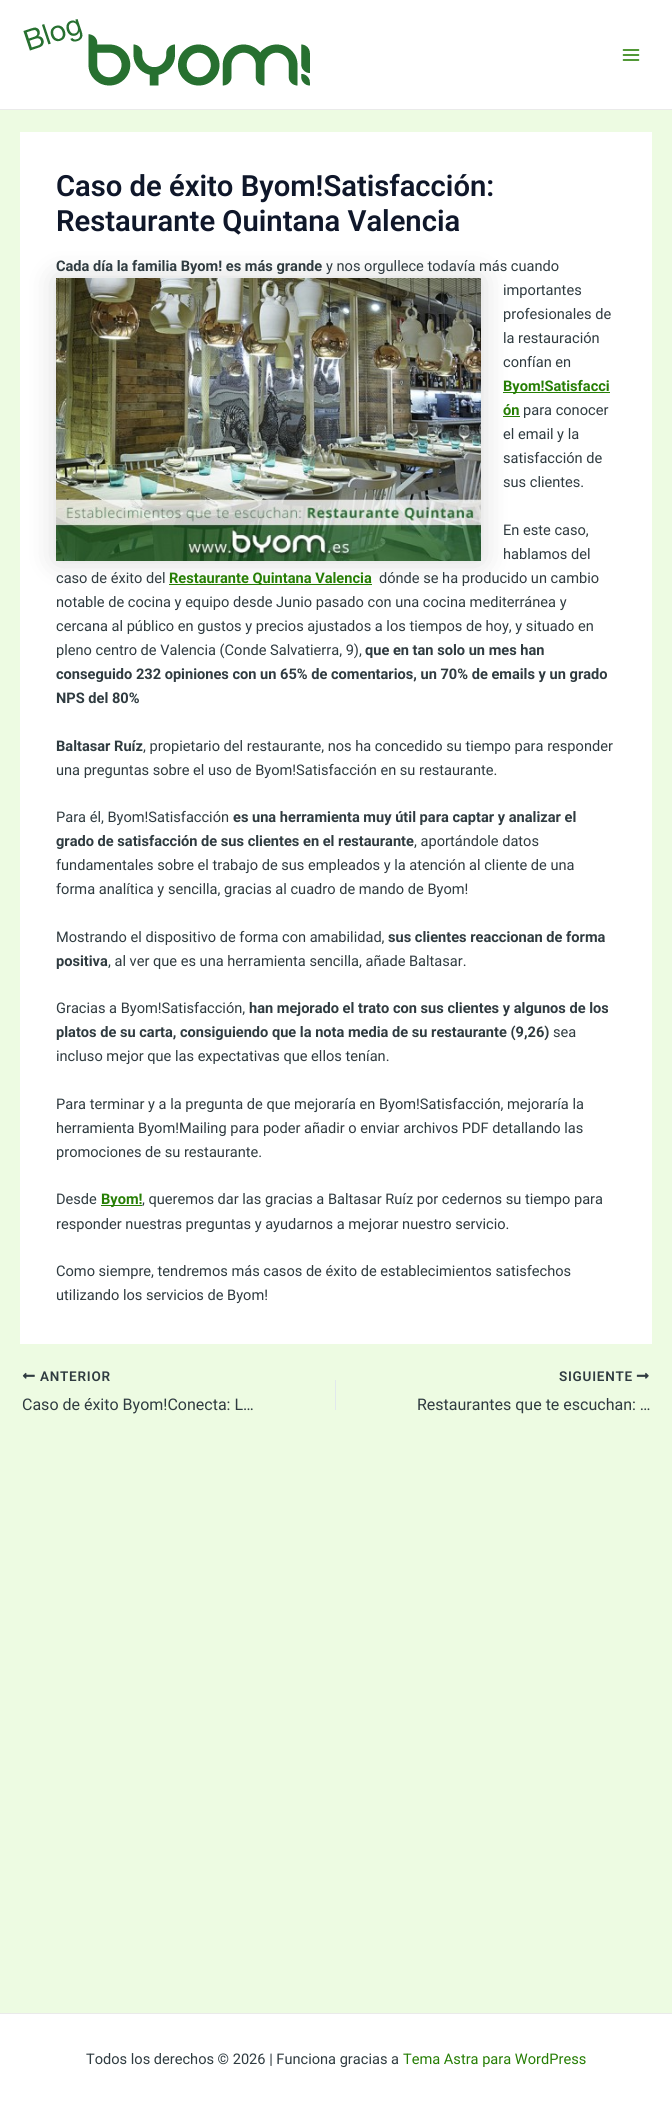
#include <cairo.h>
#include <math.h>
#include <stddef.h>

static cairo_t *c;
static void C(unsigned color){cairo_set_source_rgb(c, (color >> 16) / 255.0, (color >> 8 & 255) / 255.0, (color & 255) / 255.0);}
static void F(const char *family, double size, int italic, int bold){cairo_select_font_face(c, family, italic ? CAIRO_FONT_SLANT_ITALIC : CAIRO_FONT_SLANT_NORMAL,bold ? CAIRO_FONT_WEIGHT_BOLD : CAIRO_FONT_WEIGHT_NORMAL);cairo_set_font_size(c, size);}
static void T(double x, double y, const char *s){cairo_move_to(c, x, y);cairo_show_text(c, s);}
static void L(double x, double y, const char *s, double letter, double word){cairo_move_to(c, x, y);while (*s) {char ch[5] = {0};int n = 0;do ch[n++] = *s++; while ((*s & 0xC0) == 0x80);cairo_show_text(c, ch);cairo_rel_move_to(c, letter + word * (*ch == ' '), 0);}}
static void R(double x, double y, double w, double h){cairo_rectangle(c, x, y, w, h);cairo_fill(c);}
static void Q(double x, double y, double w, double h, double r){cairo_new_sub_path(c);cairo_arc(c, x + w - r, y + h - r, r, 0, M_PI / 2);cairo_arc(c, x + r, y + h - r, r, M_PI / 2, M_PI);cairo_arc(c, x + r, y + r, r, M_PI, 1.5 * M_PI);cairo_arc(c, x + w - r, y + r, r, 1.5 * M_PI, 2 * M_PI);cairo_close_path(c);}
static void S(double x, double y, double w, double h, double r, double blur, double alpha){cairo_push_group_with_content(c, CAIRO_CONTENT_ALPHA);cairo_set_operator(c, CAIRO_OPERATOR_SOURCE);for (int i = 15; i >= -15 && fmin(w, h) + blur * i / 3 > 0; i -= 2) {double e = blur * i / 6;cairo_set_source_rgba(c, 0, 0, 0, alpha * erfc((i - 1) / 8.5) / 2);Q(x - e, y - e, w + 2 * e, h + 2 * e, fmax(0, fmin(r + e + blur * .6, fmin(w, h) / 2 + e)));cairo_fill(c);}cairo_pattern_t *soft = cairo_pop_group(c);cairo_mask(c, soft);cairo_pattern_destroy(soft);}
static void I(const char *path, double x, double y, double w, double h){cairo_surface_t *image = cairo_image_surface_create_from_png(path);cairo_save(c);cairo_set_source_surface(c, image, x, y);cairo_rectangle(c, x, y, w, h);cairo_fill(c);cairo_restore(c);cairo_surface_destroy(image);}
int main(void) {
cairo_surface_t *surface = cairo_image_surface_create(CAIRO_FORMAT_RGB24, 672, 2114);
c = cairo_create(surface);
cairo_font_options_t *options = cairo_font_options_create();
cairo_font_options_set_hint_metrics(options, CAIRO_HINT_METRICS_OFF);
cairo_font_options_set_hint_style(options, CAIRO_HINT_STYLE_NONE);
cairo_set_font_options(c, options);
cairo_set_miter_limit(c, 4);
C(0xedfbe2);
cairo_paint(c);
C(0xffffff);
R(0,0,672,109);
C(0xeaeaea);
R(0,109,672,1);
I("1.png",23,19,287,67);
I("2.png",622,49,18,12);
C(0xffffff);
R(20,132,632,1212);
F("Roboto SemiBold",29.2,0,0);
C(0x0f172a);
T(56,196,"Caso de éxito Byom!Satisfacción:");
C(0x000000);
S(56,278,425,283,0,15,.15);
C(0x0f172a);
T(56,231,"Restaurante Quintana Valencia");
I("3.png",56,278,425,283);
F("Roboto",14.6,0,1);
C(0x2f3b40);
T(56,271,"Cada día la familia Byom! es más grande");
F("Roboto",14.6,0,0);
T(326,271,"y nos orgullece todavía más cuando");
T(503,295,"importantes");
T(503,319,"profesionales de");
T(503,343,"la restauración");
T(503,367,"confían en");
C(0x267e04);
R(503,392,107,1);
F("Roboto",14.6,0,1);
T(503,391,"Byom!Satisfacci");
T(503,415,"ón");
R(503,416,17,1);
F("Roboto",14.6,0,0);
C(0x2f3b40);
T(523,415,"para conocer");
T(503,439,"el email y la");
T(503,463,"satisfacción de");
T(503,487,"sus clientes.");
T(503,535,"En este caso,");
T(503,559,"hablamos del");
T(56,583,"caso de éxito del");
C(0x267e04);
R(169,584,203,1);
F("Roboto",14.6,0,1);
T(169,583,"Restaurante Quintana Valencia");
F("Roboto",14.6,0,0);
C(0x2f3b40);
T(379,583,"dónde se ha producido un cambio");
T(56,607,"notable de cocina y equipo desde Junio pasado con una cocina mediterránea y");
T(56,631,"cercana al público en gustos y precios ajustados a los tiempos de hoy, y situado en");
T(56,655,"pleno centro de Valencia (Conde Salvatierra, 9),");
F("Roboto",14.6,0,1);
T(365,655,"que en tan solo un mes han");
T(56,679,"conseguido 232 opiniones con un 65% de comentarios, un 70% de emails y un grado");
T(56,703,"NPS del 80%");
T(56,751,"Baltasar Ruíz");
F("Roboto",14.6,0,0);
T(143,751,", propietario del restaurante, nos ha concedido su tiempo para responder");
T(56,775,"una preguntas sobre el uso de Byom!Satisfacción en su restaurante.");
T(56,822,"Para él, Byom!Satisfacción");
F("Roboto",14.6,0,1);
T(233,822,"es una herramienta muy útil para captar y analizar el");
T(56,846,"grado de satisfacción de sus clientes en el restaurante");
F("Roboto",14.6,0,0);
T(414,846,", aportándole datos");
T(56,870,"fundamentales sobre el trabajo de sus empleados y la atención al cliente de una");
T(56,894,"forma analítica y sencilla, gracias al cuadro de mando de Byom!");
T(56,942,"Mostrando el dispositivo de forma con amabilidad,");
F("Roboto",14.6,0,1);
T(388,942,"sus clientes reaccionan de forma");
T(56,966,"positiva");
F("Roboto",14.6,0,0);
T(108,966,", al ver que es una herramienta sencilla, añade Baltasar.");
T(56,1013,"Gracias a Byom!Satisfacción,");
F("Roboto",14.6,0,1);
T(249,1013,"han mejorado el trato con sus clientes y algunos de los");
T(56,1037,"platos de su carta, consiguiendo que la nota media de su restaurante (9,26)");
F("Roboto",14.6,0,0);
T(553,1037,"sea");
T(56,1061,"incluso mejor que las expectativas que ellos tenían.");
T(56,1109,"Para terminar y a la pregunta de que mejoraría en Byom!Satisfacción, mejoraría la");
T(56,1133,"herramienta Byom!Mailing para poder añadir o enviar archivos PDF detallando las");
T(56,1157,"promociones de su restaurante.");
T(56,1204,"Desde");
C(0x267e04);
R(101,1205,41,1);
F("Roboto",14.6,0,1);
T(101,1204,"Byom!");
F("Roboto",14.6,0,0);
C(0x2f3b40);
T(142,1204,", queremos dar las gracias a Baltasar Ruíz por cedernos su tiempo para");
T(56,1229,"responder nuestras preguntas y ayudarnos a mejorar nuestro servicio.");
T(56,1276,"Como siempre, tendremos más casos de éxito de establecimientos satisfechos");
T(56,1300,"utilizando los servicios de Byom!");
I("4.png",22,1372,13,7);
F("Roboto SemiBold",13.5,0,0);
L(40,1381,"ANTERIOR",.75,0);
F("Roboto",16,0,0);
T(22,1410,"Caso de éxito Byom!Conecta: L…");
C(0xe1e8ed);
R(335,1380,1,30);
F("Roboto SemiBold",13.5,0,0);
C(0x2f3b40);
L(559,1381,"SIGUIENTE",.75,0);
I("5.png",636,1372,13,7);
F("Roboto",16,0,0);
T(417,1410,"Restaurantes que te escuchan: …");
C(0xffffff);
R(0,2014,672,100);
C(0xeaeaea);
R(0,2013,672,1);
F("Roboto",14.6,0,0);
C(0x2f3b40);
T(86,2064,"Todos los derechos © 2026 | Funciona gracias a");
C(0x267e04);
T(403,2064,"Tema Astra para WordPress");
cairo_surface_write_to_png(surface, "o.png");
cairo_font_options_destroy(options);
cairo_destroy(c);
cairo_surface_destroy(surface);
return 0;
}
